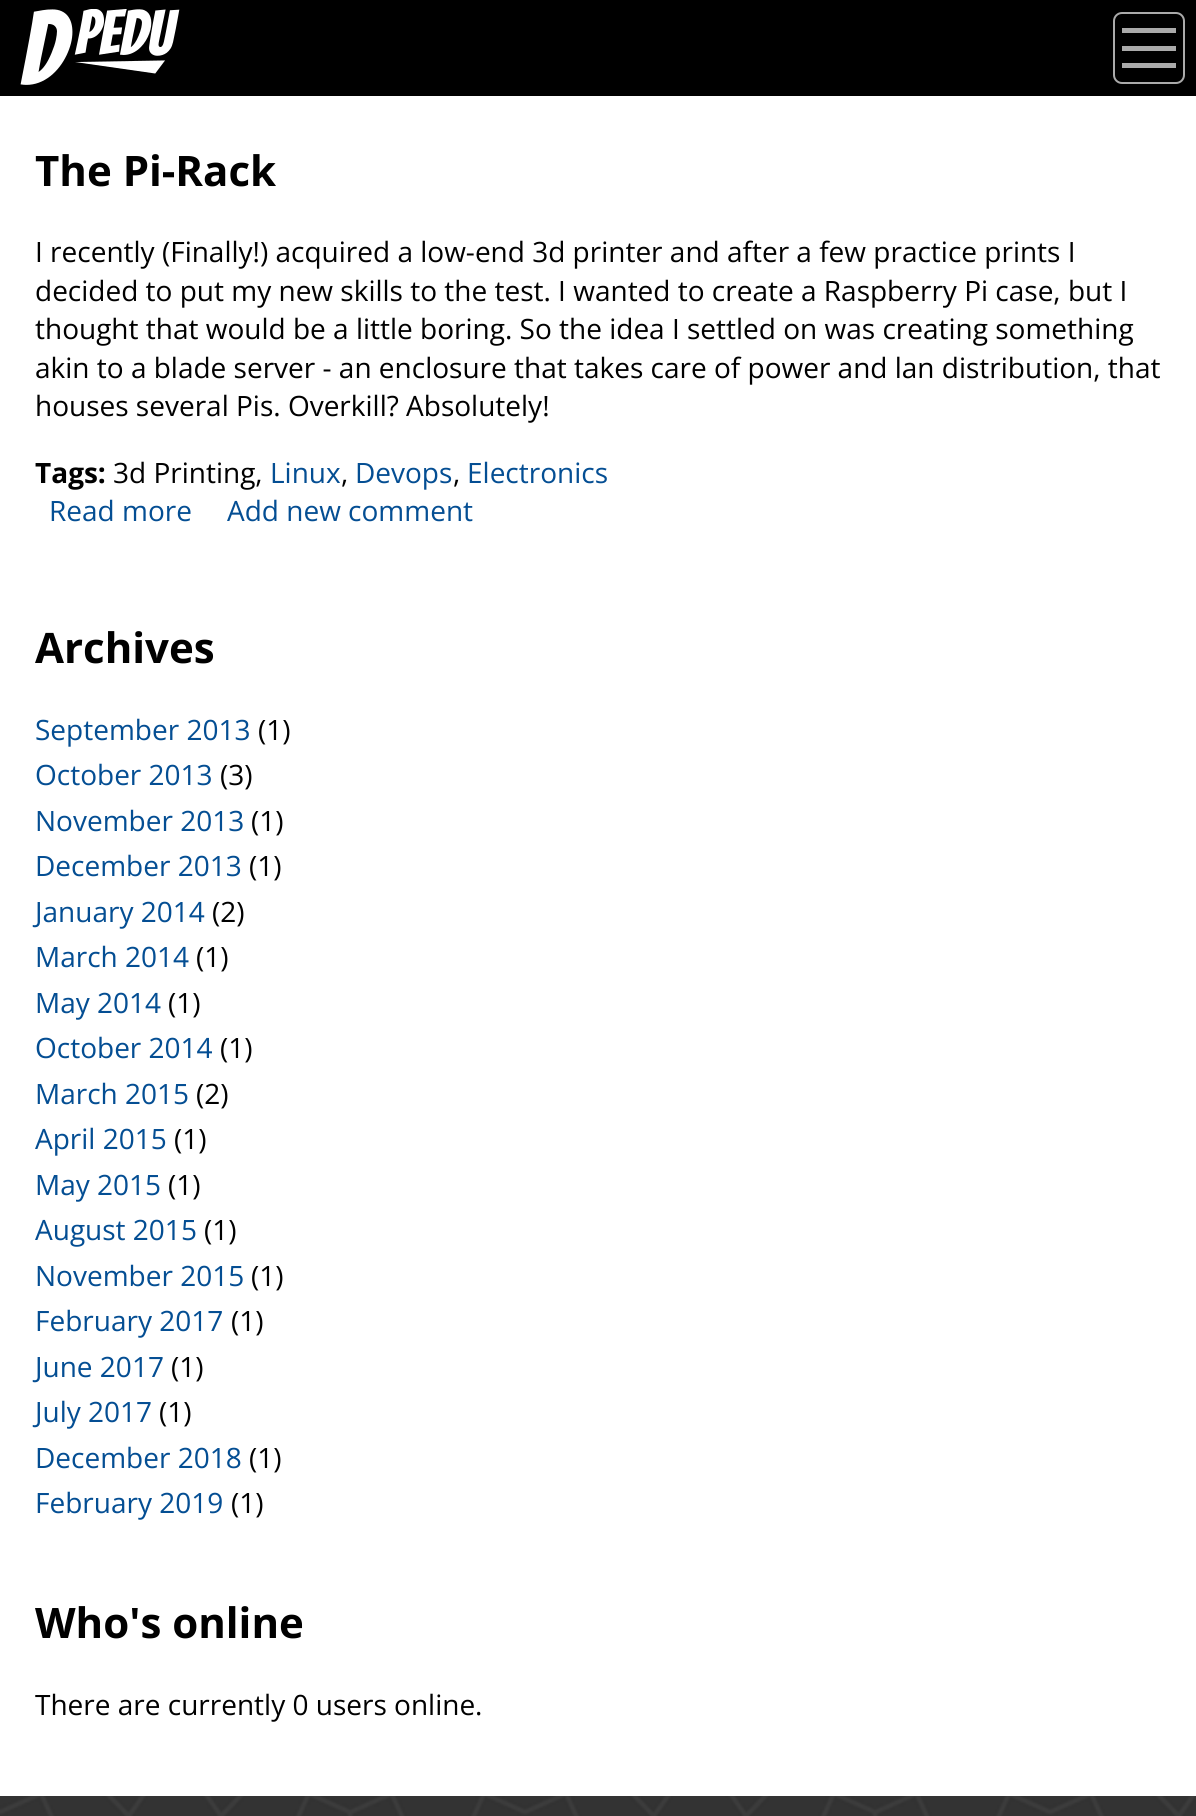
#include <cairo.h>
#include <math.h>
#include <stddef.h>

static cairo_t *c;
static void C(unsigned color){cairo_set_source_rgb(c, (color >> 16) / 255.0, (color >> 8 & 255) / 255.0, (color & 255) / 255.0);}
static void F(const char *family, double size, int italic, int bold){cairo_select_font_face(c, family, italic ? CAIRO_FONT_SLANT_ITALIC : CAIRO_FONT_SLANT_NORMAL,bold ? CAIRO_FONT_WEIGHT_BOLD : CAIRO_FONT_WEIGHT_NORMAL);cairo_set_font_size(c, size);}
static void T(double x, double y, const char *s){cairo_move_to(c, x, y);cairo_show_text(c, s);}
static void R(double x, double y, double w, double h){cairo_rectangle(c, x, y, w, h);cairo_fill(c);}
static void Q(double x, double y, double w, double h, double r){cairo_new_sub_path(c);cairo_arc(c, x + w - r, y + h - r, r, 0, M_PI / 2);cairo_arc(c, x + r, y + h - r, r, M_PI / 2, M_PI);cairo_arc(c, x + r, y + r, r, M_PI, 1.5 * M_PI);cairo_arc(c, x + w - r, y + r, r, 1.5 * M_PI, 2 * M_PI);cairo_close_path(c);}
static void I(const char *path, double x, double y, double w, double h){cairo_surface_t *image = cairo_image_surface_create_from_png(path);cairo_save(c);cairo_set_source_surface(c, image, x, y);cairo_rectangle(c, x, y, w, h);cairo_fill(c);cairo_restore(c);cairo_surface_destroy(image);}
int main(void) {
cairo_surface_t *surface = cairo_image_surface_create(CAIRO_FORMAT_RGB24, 1196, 1816);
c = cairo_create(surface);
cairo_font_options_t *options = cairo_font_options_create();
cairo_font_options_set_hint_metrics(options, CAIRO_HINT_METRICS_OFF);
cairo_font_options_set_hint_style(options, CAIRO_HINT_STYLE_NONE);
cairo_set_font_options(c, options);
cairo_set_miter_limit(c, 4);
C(0xffffff);
cairo_paint(c);
I("1.png",0,1796,1196,20);
C(0x000000);
R(0,0,1196,96);
I("2.png",20,9,160,76);
Q(1114,13,70,70,8);
C(0xaaaaaa);
cairo_stroke(c);
R(1122,28,54,5);
R(1122,46,54,5);
R(1122,63,54,5);
F("Open Sans",42,0,1);
C(0x000000);
T(35,186,"The Pi-Rack");
F("Open Sans",28,0,0);
T(35,262,"I recently (Finally!) acquired a low-end 3d printer and after a few practice prints I");
T(35,301,"decided to put my new skills to the test. I wanted to create a Raspberry Pi case, but I");
T(35,339,"thought that would be a little boring. So the idea I settled on was creating something");
T(35,378,"akin to a blade server - an enclosure that takes care of power and lan distribution, that");
T(35,416,"houses several Pis. Overkill? Absolutely!");
F("Open Sans",28,0,1);
T(35,483,"Tags:");
F("Open Sans",28,0,0);
T(113,483,"3d Printing,");
C(0x044e93);
T(270,483,"Linux");
C(0x000000);
T(341,483,",");
C(0x044e93);
T(355,483,"Devops");
C(0x000000);
T(453,483,",");
C(0x044e93);
T(467,483,"Electronics");
T(49,521,"Read more");
T(227,521,"Add new comment");
F("Open Sans",42,0,1);
C(0x000000);
T(35,663,"Archives");
F("Open Sans",28,0,0);
C(0x044e93);
T(35,740,"September 2013");
C(0x000000);
T(258,740,"(1)");
C(0x044e93);
T(35,785,"October 2013");
C(0x000000);
T(220,785,"(3)");
C(0x044e93);
T(35,831,"November 2013");
C(0x000000);
T(251,831,"(1)");
C(0x044e93);
T(35,876,"December 2013");
C(0x000000);
T(249,876,"(1)");
C(0x044e93);
T(35,922,"January 2014");
C(0x000000);
T(212,922,"(2)");
C(0x044e93);
T(35,967,"March 2014");
C(0x000000);
T(196,967,"(1)");
C(0x044e93);
T(35,1013,"May 2014");
C(0x000000);
T(168,1013,"(1)");
C(0x044e93);
T(35,1058,"October 2014");
C(0x000000);
T(220,1058,"(1)");
C(0x044e93);
T(35,1104,"March 2015");
C(0x000000);
T(196,1104,"(2)");
C(0x044e93);
T(35,1149,"April 2015");
C(0x000000);
T(174,1149,"(1)");
C(0x044e93);
T(35,1195,"May 2015");
C(0x000000);
T(168,1195,"(1)");
C(0x044e93);
T(35,1240,"August 2015");
C(0x000000);
T(204,1240,"(1)");
C(0x044e93);
T(35,1286,"November 2015");
C(0x000000);
T(251,1286,"(1)");
C(0x044e93);
T(35,1331,"February 2017");
C(0x000000);
T(231,1331,"(1)");
C(0x044e93);
T(35,1377,"June 2017");
C(0x000000);
T(171,1377,"(1)");
C(0x044e93);
T(35,1422,"July 2017");
C(0x000000);
T(159,1422,"(1)");
C(0x044e93);
T(35,1468,"December 2018");
C(0x000000);
T(249,1468,"(1)");
C(0x044e93);
T(35,1513,"February 2019");
C(0x000000);
T(231,1513,"(1)");
F("Open Sans",42,0,1);
T(35,1638,"Who's online");
F("Open Sans",28,0,0);
T(35,1715,"There are currently 0 users online.");
cairo_surface_write_to_png(surface, "o.png");
cairo_font_options_destroy(options);
cairo_destroy(c);
cairo_surface_destroy(surface);
return 0;
}
